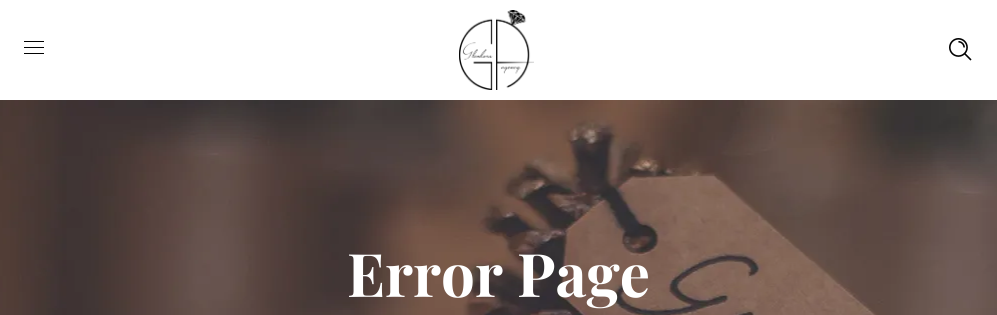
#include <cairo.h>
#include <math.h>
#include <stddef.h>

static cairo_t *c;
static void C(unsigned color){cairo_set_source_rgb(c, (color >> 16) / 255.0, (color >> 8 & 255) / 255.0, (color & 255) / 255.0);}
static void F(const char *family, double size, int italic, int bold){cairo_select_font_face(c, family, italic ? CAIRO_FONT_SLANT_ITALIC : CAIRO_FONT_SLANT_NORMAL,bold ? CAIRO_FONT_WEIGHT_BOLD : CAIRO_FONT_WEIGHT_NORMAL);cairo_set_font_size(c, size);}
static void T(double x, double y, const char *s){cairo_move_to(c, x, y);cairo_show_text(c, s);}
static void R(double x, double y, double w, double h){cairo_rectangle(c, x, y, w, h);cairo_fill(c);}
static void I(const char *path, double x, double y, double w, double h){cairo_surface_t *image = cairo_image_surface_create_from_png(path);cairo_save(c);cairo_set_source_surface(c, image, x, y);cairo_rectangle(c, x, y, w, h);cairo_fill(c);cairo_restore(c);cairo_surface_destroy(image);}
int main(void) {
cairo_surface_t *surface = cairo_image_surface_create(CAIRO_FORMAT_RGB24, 997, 315);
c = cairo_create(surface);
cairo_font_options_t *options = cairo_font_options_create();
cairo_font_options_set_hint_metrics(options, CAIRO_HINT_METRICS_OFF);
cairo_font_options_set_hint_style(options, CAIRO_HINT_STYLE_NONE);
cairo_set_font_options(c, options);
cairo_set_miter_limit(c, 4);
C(0xffffff);
cairo_paint(c);
C(0x020202);
R(24,41,20,1);
R(24,47,20,1);
R(24,53,20,1);
I("1.png",459,10,75,80);
I("2.png",949,38,23,23);
I("3.png",0,100,997,215);
F("Playfair Display",60,0,1);
C(0xffffff);
T(347,297,"Error Page");
cairo_surface_write_to_png(surface, "o.png");
cairo_font_options_destroy(options);
cairo_destroy(c);
cairo_surface_destroy(surface);
return 0;
}
